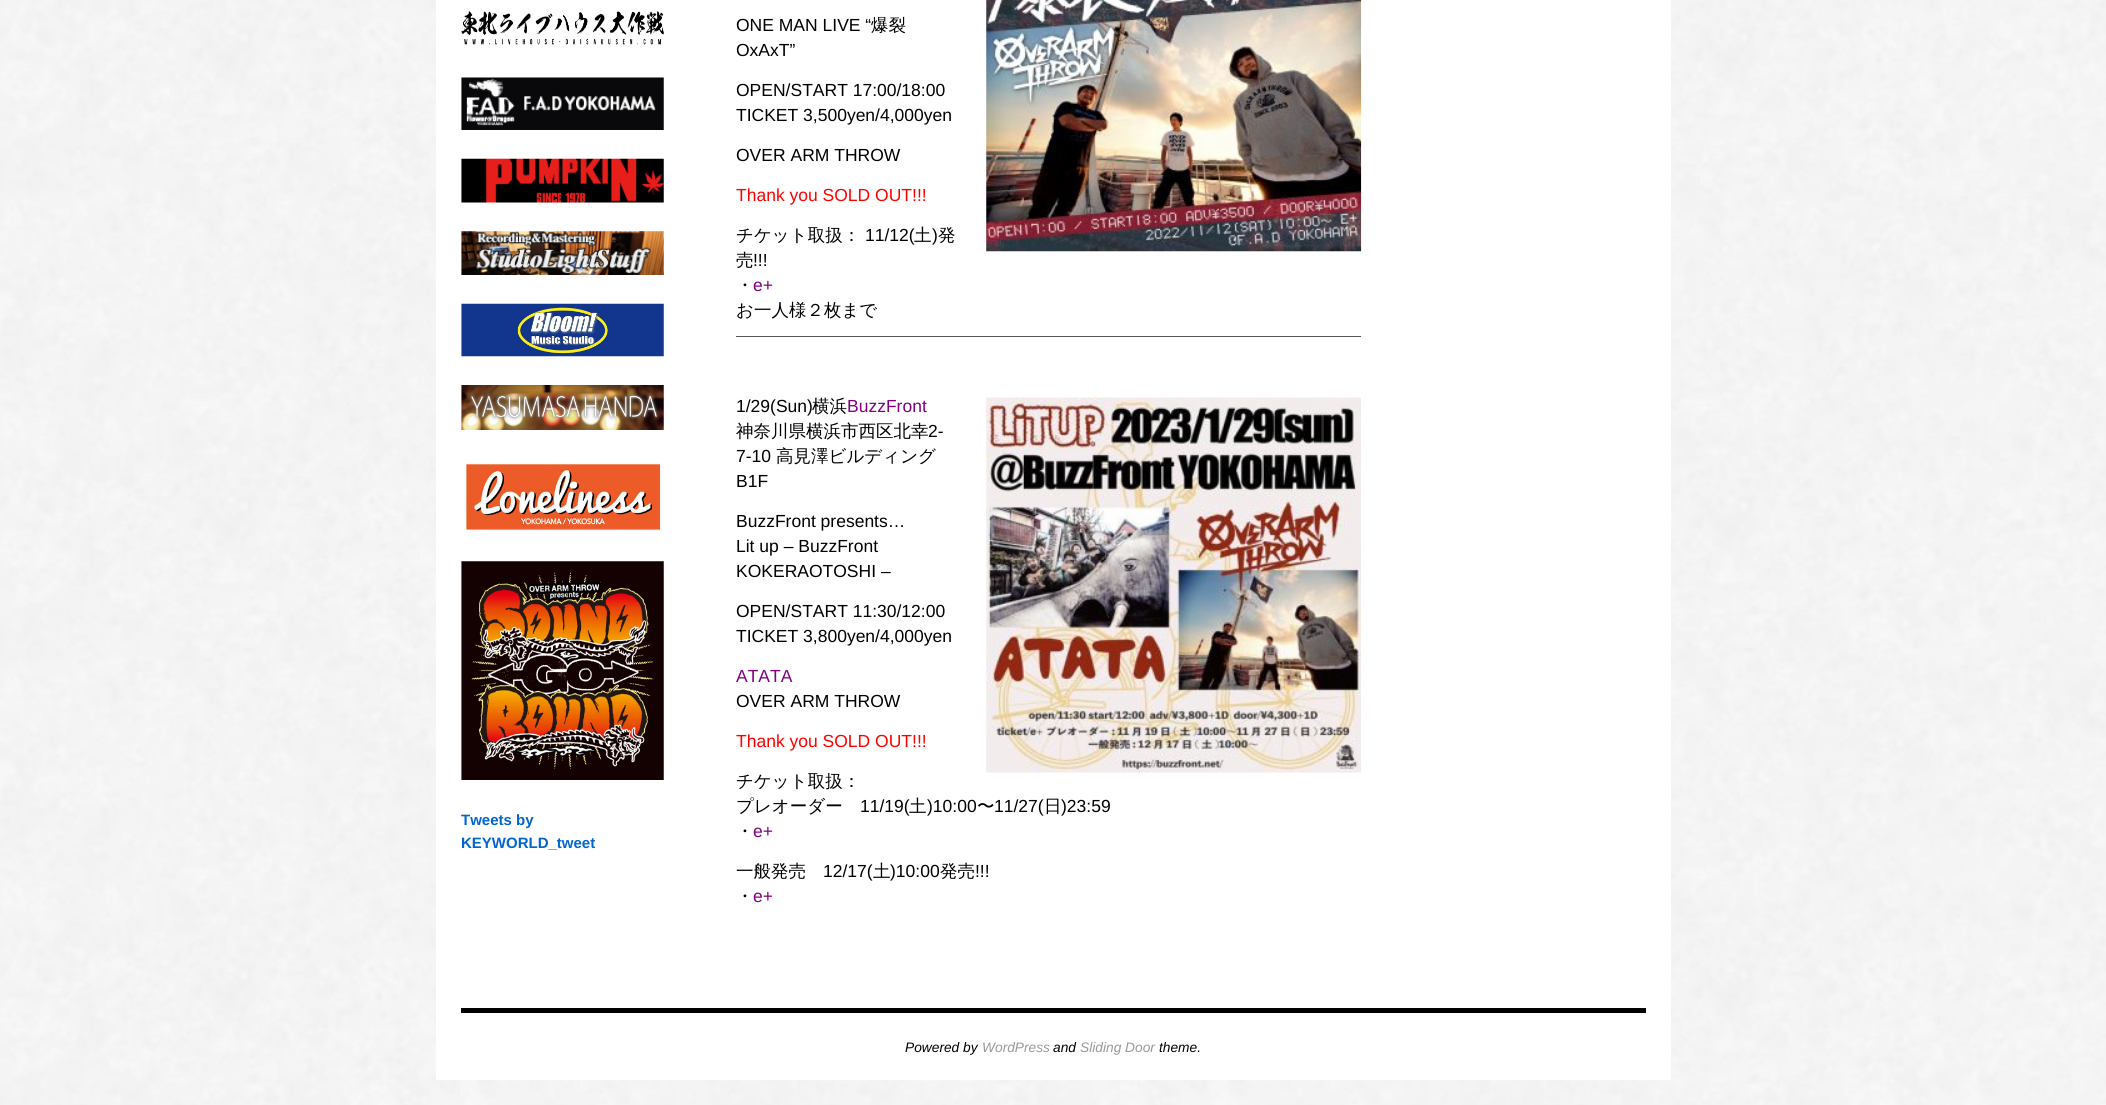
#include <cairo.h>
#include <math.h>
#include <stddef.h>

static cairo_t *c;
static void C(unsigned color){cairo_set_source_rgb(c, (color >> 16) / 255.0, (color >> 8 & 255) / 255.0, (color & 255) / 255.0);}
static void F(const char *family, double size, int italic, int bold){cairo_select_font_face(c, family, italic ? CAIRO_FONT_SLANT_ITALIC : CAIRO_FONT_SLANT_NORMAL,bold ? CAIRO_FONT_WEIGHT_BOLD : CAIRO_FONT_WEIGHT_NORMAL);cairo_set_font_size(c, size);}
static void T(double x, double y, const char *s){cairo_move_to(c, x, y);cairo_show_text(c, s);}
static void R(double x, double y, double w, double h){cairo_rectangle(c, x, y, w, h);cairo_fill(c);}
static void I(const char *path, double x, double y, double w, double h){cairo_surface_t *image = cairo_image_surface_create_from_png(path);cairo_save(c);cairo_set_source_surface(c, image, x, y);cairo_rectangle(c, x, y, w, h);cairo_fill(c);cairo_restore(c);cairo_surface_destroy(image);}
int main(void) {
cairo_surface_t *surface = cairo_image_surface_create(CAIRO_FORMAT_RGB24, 2106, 1105);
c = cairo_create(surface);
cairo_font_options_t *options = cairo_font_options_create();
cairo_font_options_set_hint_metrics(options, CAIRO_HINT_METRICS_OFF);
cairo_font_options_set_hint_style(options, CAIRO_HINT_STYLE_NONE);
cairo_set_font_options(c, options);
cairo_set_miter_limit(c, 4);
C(0xffffff);
cairo_paint(c);
I("1.png",0,0,2106,1105);
C(0xffffff);
R(436,0,1235,1080);
I("2.png",461,11,203,34);
I("3.png",461,77,203,53);
I("4.png",461,158,203,45);
I("5.png",461,231,203,44);
I("6.png",461,303,203,54);
I("7.png",461,385,203,45);
I("8.png",466,463,197,70);
I("9.png",461,561,203,219);
cairo_save(c);
cairo_rectangle(c,461,0,228,876);
cairo_clip(c);
F("Liberation Sans",15,0,1);
C(0x0066cc);
T(461,825,"Tweets by");
cairo_restore(c);
F("Liberation Sans",15,0,1);
C(0x0066cc);
T(461,848,"KEYWORLD_tweet");
F("Liberation Sans",17.5,0,0);
C(0x000000);
T(736,31,"ONE MAN LIVE “");
F("WenQuanYi Zen Hei Medium",17.5,0,0);
T(871,31,"爆裂");
F("Liberation Sans",17.5,0,0);
T(736,56,"OxAxT”");
I("10.png",986,0,376,252);
T(736,96,"OPEN/START 17:00/18:00");
T(736,121,"TICKET 3,500yen/4,000yen");
T(736,161,"OVER ARM THROW");
C(0xff0000);
T(736,201,"Thank you SOLD OUT!!!");
F("WenQuanYi Zen Hei Medium",17.5,0,0);
C(0x000000);
T(736,241,"チケット取扱：");
F("Liberation Sans",17.5,0,0);
T(865,241,"11/12(");
F("WenQuanYi Zen Hei Medium",17.5,0,0);
T(914,241,"土");
F("Liberation Sans",17.5,0,0);
T(932,241,")");
F("WenQuanYi Zen Hei Medium",17.5,0,0);
T(938,241,"発");
T(736,266,"売");
F("Liberation Sans",17.5,0,0);
T(753,266,"!!!");
F("WenQuanYi Zen Hei Medium",17.5,0,0);
T(736,291,"・");
F("Liberation Sans",17.5,0,0);
C(0x800080);
T(753,291,"e+");
F("WenQuanYi Zen Hei Medium",17.5,0,0);
C(0x000000);
T(736,316,"お一人様２枚まで");
C(0x555555);
R(736,336,625,1);
F("Liberation Sans",17.5,0,0);
C(0x000000);
T(736,412,"1/29(Sun)");
F("WenQuanYi Zen Hei Medium",17.5,0,0);
T(812,412,"横浜");
F("Liberation Sans",17.5,0,0);
C(0x800080);
T(847,412,"BuzzFront");
I("11.png",986,397,375,376);
F("WenQuanYi Zen Hei Medium",17.5,0,0);
C(0x000000);
T(736,437,"神奈川県横浜市西区北幸");
F("Liberation Sans",17.5,0,0);
T(928,437,"2-");
T(736,462,"7-10");
F("WenQuanYi Zen Hei Medium",17.5,0,0);
T(776,462,"高見澤ビルディング");
F("Liberation Sans",17.5,0,0);
T(736,487,"B1F");
T(736,527,"BuzzFront presents…");
T(736,552,"Lit up – BuzzFront");
T(736,577,"KOKERAOTOSHI –");
T(736,617,"OPEN/START 11:30/12:00");
T(736,642,"TICKET 3,800yen/4,000yen");
C(0x800080);
T(736,682,"ATATA");
C(0x000000);
T(736,707,"OVER ARM THROW");
C(0xff0000);
T(736,747,"Thank you SOLD OUT!!!");
F("WenQuanYi Zen Hei Medium",17.5,0,0);
C(0x000000);
T(736,787,"チケット取扱：");
T(736,812,"プレオーダー");
F("Liberation Sans",17.5,0,0);
T(860,812,"11/19(");
F("WenQuanYi Zen Hei Medium",17.5,0,0);
T(909,812,"土");
F("Liberation Sans",17.5,0,0);
T(927,812,")10:00");
F("WenQuanYi Zen Hei Medium",17.5,0,0);
T(977,812,"〜");
F("Liberation Sans",17.5,0,0);
T(994,812,"11/27(");
F("WenQuanYi Zen Hei Medium",17.5,0,0);
T(1044,812,"日");
F("Liberation Sans",17.5,0,0);
T(1061,812,")23:59");
F("WenQuanYi Zen Hei Medium",17.5,0,0);
T(736,837,"・");
F("Liberation Sans",17.5,0,0);
C(0x800080);
T(753,837,"e+");
F("WenQuanYi Zen Hei Medium",17.5,0,0);
C(0x000000);
T(736,877,"一般発売");
F("Liberation Sans",17.5,0,0);
T(823,877,"12/17(");
F("WenQuanYi Zen Hei Medium",17.5,0,0);
T(873,877,"土");
F("Liberation Sans",17.5,0,0);
T(890,877,")10:00");
F("WenQuanYi Zen Hei Medium",17.5,0,0);
T(940,877,"発売");
F("Liberation Sans",17.5,0,0);
T(975,877,"!!!");
F("WenQuanYi Zen Hei Medium",17.5,0,0);
T(736,902,"・");
F("Liberation Sans",17.5,0,0);
C(0x800080);
T(753,902,"e+");
C(0x000000);
R(461,1008,1185,5);
F("Liberation Sans",13.75,1,0);
T(905,1052,"Powered by");
C(0x999999);
T(982,1052,"WordPress");
C(0x000000);
T(1053,1052,"and");
C(0x999999);
T(1080,1052,"Sliding Door");
C(0x000000);
T(1159,1052,"theme.");
cairo_surface_write_to_png(surface, "o.png");
cairo_font_options_destroy(options);
cairo_destroy(c);
cairo_surface_destroy(surface);
return 0;
}
